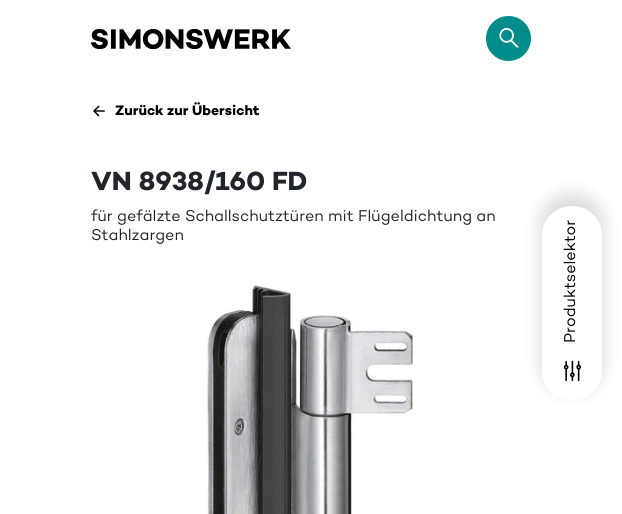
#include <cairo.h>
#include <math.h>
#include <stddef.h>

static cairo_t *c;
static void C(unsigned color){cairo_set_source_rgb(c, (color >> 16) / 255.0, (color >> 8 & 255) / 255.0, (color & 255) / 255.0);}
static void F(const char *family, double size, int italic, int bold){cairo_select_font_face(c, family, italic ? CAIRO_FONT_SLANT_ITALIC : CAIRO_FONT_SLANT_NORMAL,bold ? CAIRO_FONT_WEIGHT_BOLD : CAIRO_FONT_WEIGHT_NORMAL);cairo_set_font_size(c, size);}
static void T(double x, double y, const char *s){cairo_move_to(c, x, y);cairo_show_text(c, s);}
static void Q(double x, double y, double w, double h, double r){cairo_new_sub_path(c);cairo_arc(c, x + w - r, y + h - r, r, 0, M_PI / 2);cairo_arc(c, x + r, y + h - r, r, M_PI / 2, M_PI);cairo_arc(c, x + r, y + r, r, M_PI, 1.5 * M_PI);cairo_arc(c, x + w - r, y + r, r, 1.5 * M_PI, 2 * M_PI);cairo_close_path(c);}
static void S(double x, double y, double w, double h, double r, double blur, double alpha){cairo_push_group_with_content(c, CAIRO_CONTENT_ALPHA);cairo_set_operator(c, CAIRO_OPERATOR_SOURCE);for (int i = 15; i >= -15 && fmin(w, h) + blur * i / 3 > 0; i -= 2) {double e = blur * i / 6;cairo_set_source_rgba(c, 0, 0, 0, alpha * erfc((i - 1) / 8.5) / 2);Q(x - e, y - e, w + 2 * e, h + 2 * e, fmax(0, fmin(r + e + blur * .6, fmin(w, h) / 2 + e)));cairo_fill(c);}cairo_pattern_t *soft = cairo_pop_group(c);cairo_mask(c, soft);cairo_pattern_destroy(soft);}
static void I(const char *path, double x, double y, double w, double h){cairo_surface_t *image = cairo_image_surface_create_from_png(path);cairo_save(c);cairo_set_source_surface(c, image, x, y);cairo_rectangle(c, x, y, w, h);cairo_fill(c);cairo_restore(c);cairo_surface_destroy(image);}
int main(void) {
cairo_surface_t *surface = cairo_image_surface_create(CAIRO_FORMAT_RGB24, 622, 514);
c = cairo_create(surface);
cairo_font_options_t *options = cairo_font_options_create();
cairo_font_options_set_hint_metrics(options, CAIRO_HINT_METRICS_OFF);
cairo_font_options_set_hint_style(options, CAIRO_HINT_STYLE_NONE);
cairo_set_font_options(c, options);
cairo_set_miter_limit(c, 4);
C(0xffffff);
cairo_paint(c);
I("1.png",91,29,200,20);
C(0x008c8b);
cairo_arc(c,508.5,38.5,22.5,0,2 * M_PI);
cairo_fill(c);
I("2.png",499,28,20,20);
cairo_new_path(c);
cairo_move_to(c,98.5,115.5);
cairo_line_to(c,94,111);
cairo_line_to(c,98.5,106.5);
cairo_move_to(c,95,111);
cairo_line_to(c,104,111);
C(0x000000);
cairo_set_line_width(c,1.5);
cairo_set_line_cap(c,CAIRO_LINE_CAP_SQUARE);
cairo_stroke(c);
F("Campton",14,0,1);
T(115,115,"Zurück zur Übersicht");
F("Campton",26.75,0,1);
C(0x212529);
T(91,190,"VN 8938/160 FD");
F("Campton",16,0,0);
T(91,221,"für gefälzte Schallschutztüren mit Flügeldichtung an");
T(91,240,"Stahlzargen");
I("3.png",206,283,208,231);
C(0x000000);
S(542,196,60,194,30,10,.16);
C(0xffffff);
cairo_new_path(c);
cairo_move_to(c,572,400);
cairo_curve_to(c,555,400,542,387,542,370);
cairo_line_to(c,542,236);
cairo_curve_to(c,542,219,555,206,572,206);
cairo_curve_to(c,589,206,602,219,602,236);
cairo_line_to(c,602,370);
cairo_curve_to(c,602,387,589,400,572,400);
cairo_close_path(c);
cairo_fill(c);
C(0x000000);
cairo_save(c);
cairo_translate(c,575,343);
cairo_rotate(c,-90 * M_PI / 180);
T(0,0,"Produktselektor");
cairo_restore(c);
I("4.png",563,360,18,22);
cairo_surface_write_to_png(surface, "o.png");
cairo_font_options_destroy(options);
cairo_destroy(c);
cairo_surface_destroy(surface);
return 0;
}
